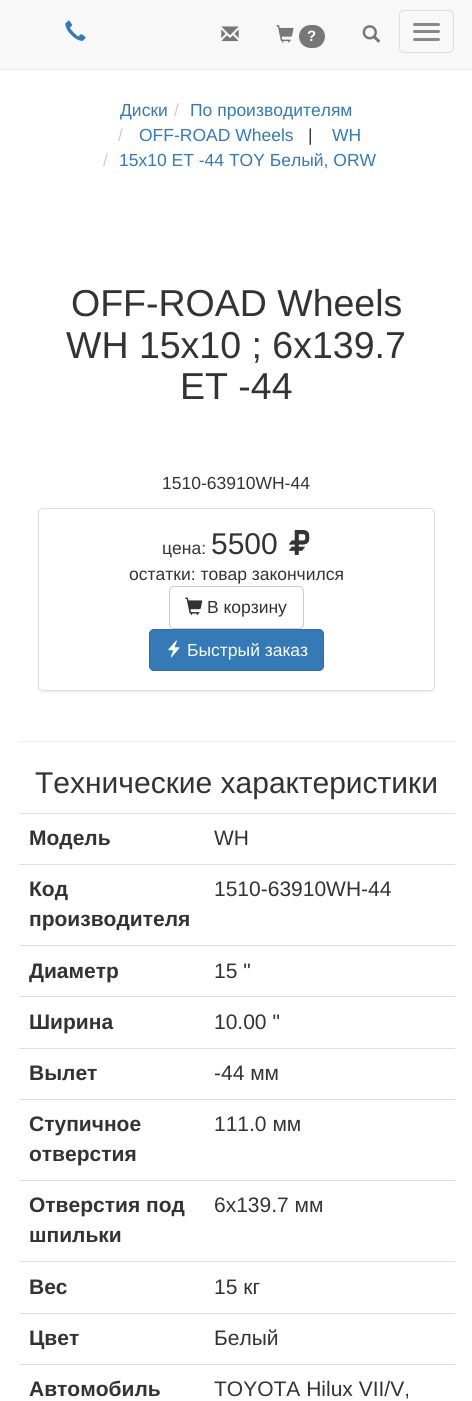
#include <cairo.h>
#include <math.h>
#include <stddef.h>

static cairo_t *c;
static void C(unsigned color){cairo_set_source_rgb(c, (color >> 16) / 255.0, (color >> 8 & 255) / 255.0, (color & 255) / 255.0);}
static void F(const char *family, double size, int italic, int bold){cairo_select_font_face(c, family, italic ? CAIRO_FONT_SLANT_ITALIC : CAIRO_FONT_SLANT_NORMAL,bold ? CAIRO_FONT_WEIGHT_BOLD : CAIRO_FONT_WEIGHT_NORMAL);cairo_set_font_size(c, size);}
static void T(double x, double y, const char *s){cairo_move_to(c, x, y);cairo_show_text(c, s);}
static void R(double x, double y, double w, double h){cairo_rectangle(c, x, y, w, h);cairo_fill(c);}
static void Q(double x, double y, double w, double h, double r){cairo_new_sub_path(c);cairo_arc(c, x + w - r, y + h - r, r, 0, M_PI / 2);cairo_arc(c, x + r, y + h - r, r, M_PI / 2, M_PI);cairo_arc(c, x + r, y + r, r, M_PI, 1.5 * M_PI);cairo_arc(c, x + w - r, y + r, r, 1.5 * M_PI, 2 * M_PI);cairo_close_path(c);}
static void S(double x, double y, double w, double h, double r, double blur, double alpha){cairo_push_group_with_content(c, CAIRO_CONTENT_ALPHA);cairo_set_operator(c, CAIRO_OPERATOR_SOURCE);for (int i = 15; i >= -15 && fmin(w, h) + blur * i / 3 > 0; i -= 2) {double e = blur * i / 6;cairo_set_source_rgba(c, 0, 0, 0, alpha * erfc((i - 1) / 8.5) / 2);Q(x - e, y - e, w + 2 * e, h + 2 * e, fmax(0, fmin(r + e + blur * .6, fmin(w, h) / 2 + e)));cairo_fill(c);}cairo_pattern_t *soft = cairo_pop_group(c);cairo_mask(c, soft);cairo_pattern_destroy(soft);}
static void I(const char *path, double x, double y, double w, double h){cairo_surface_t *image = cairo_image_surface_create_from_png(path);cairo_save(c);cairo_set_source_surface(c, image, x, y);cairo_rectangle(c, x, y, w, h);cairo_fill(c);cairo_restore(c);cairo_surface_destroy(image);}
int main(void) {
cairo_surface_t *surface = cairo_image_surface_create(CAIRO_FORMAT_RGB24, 472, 1401);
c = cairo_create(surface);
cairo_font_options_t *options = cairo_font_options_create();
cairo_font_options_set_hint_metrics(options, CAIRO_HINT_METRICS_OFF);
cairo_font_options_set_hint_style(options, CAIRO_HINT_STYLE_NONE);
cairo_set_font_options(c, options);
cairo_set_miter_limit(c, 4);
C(0xffffff);
cairo_paint(c);
C(0xf8f8f8);
R(0,0,472,69);
C(0xe7e7e7);
R(0,69,472,1);
I("1.png",65,20,21,21);
I("2.png",221,26,18,16);
I("3.png",276,25,18,18);
C(0x777777);
Q(299,25,26,23,11.5);
cairo_fill(c);
F("Liberation Sans",15,0,1);
C(0xffffff);
T(307,41,"?");
I("4.png",362,25,19,18);
Q(399.5,10.5,54,42,4.5);
C(0xdddddd);
cairo_set_line_width(c,1);
cairo_stroke(c);
C(0x888888);
Q(413,23,27,3,1.5);
cairo_fill(c);
Q(413,30,27,3,1.5);
cairo_fill(c);
Q(413,38,27,3,1.5);
cairo_fill(c);
F("Liberation Sans",17.5,0,0);
C(0x337ab7);
T(120,116,"Диски");
C(0xcccccc);
T(174,116,"/");
C(0x337ab7);
T(190,116,"По производителям");
C(0xcccccc);
T(118,141,"/");
C(0x337ab7);
T(139,141,"OFF-ROAD Wheels");
C(0x333333);
T(308,141,"|");
C(0x337ab7);
T(332,141,"WH");
C(0xcccccc);
T(103,166,"/");
C(0x337ab7);
T(119,166,"15x10 ET -44 TOY Белый, ORW");
F("Liberation Sans",37.5,0,0);
C(0x333333);
T(71,316,"OFF-ROAD Wheels");
T(66,358,"WH 15x10 ; 6x139.7");
T(180,399,"ET -44");
F("Liberation Sans",17.5,0,0);
T(162,489,"1510-63910WH-44");
C(0x000000);
S(38,509,397,184,5,.5,.05);
C(0xffffff);
Q(38.5,508.5,396,182,4.5);
cairo_fill_preserve(c);
C(0xdddddd);
cairo_stroke(c);
C(0x333333);
T(162,554,"цена:");
F("Liberation Sans",30,0,0);
T(211,554,"5500");
I("5.png",288,530,22,25);
F("Liberation Sans",17.5,0,0);
T(129,580,"остатки: товар закончился");
Q(169.5,586.5,134,42,4.5);
C(0xcccccc);
cairo_stroke(c);
I("6.png",185,597,18,18);
C(0x333333);
T(207,613,"В корзину");
C(0x337ab7);
Q(149.5,629.5,174,41,4.5);
cairo_fill_preserve(c);
C(0x2e6da4);
cairo_stroke(c);
I("7.png",168,640,12,18);
C(0xffffff);
T(187,656,"Быстрый заказ");
C(0xeeeeee);
R(19,741,435,1);
F("Liberation Sans",30,0,0);
C(0x333333);
T(35,793,"Технические характеристики");
F("Liberation Sans",21,0,1);
T(29,845,"Модель");
C(0xdddddd);
R(19,813,436,1);
F("Liberation Sans",21,0,0);
C(0x333333);
T(214,845,"WH");
F("Liberation Sans",21,0,1);
T(29,896,"Код");
T(29,926,"производителя");
C(0xdddddd);
R(19,864,436,1);
F("Liberation Sans",21,0,0);
C(0x333333);
T(214,896,"1510-63910WH-44");
F("Liberation Sans",21,0,1);
T(29,978,"Диаметр");
C(0xdddddd);
R(19,945,436,1);
F("Liberation Sans",21,0,0);
C(0x333333);
T(214,978,"15 \"");
F("Liberation Sans",21,0,1);
T(29,1029,"Ширина");
C(0xdddddd);
R(19,996,436,1);
F("Liberation Sans",21,0,0);
C(0x333333);
T(214,1029,"10.00 \"");
F("Liberation Sans",21,0,1);
T(29,1080,"Вылет");
C(0xdddddd);
R(19,1048,436,1);
F("Liberation Sans",21,0,0);
C(0x333333);
T(214,1080,"-44 мм");
F("Liberation Sans",21,0,1);
T(29,1131,"Ступичное");
T(29,1161,"отверстия");
C(0xdddddd);
R(19,1099,436,1);
F("Liberation Sans",21,0,0);
C(0x333333);
T(214,1131,"111.0 мм");
F("Liberation Sans",21,0,1);
T(29,1212,"Отверстия под");
T(29,1242,"шпильки");
C(0xdddddd);
R(19,1180,436,1);
F("Liberation Sans",21,0,0);
C(0x333333);
T(214,1212,"6x139.7 мм");
F("Liberation Sans",21,0,1);
T(29,1294,"Вес");
C(0xdddddd);
R(19,1261,436,1);
F("Liberation Sans",21,0,0);
C(0x333333);
T(214,1294,"15 кг");
F("Liberation Sans",21,0,1);
T(29,1345,"Цвет");
C(0xdddddd);
R(19,1313,436,1);
F("Liberation Sans",21,0,0);
C(0x333333);
T(214,1345,"Белый");
F("Liberation Sans",21,0,1);
T(29,1396,"Автомобиль");
C(0xdddddd);
R(19,1364,436,1);
F("Liberation Sans",21,0,0);
C(0x333333);
T(214,1396,"TOYOTA Hilux VII/V,");
cairo_surface_write_to_png(surface, "o.png");
cairo_font_options_destroy(options);
cairo_destroy(c);
cairo_surface_destroy(surface);
return 0;
}
